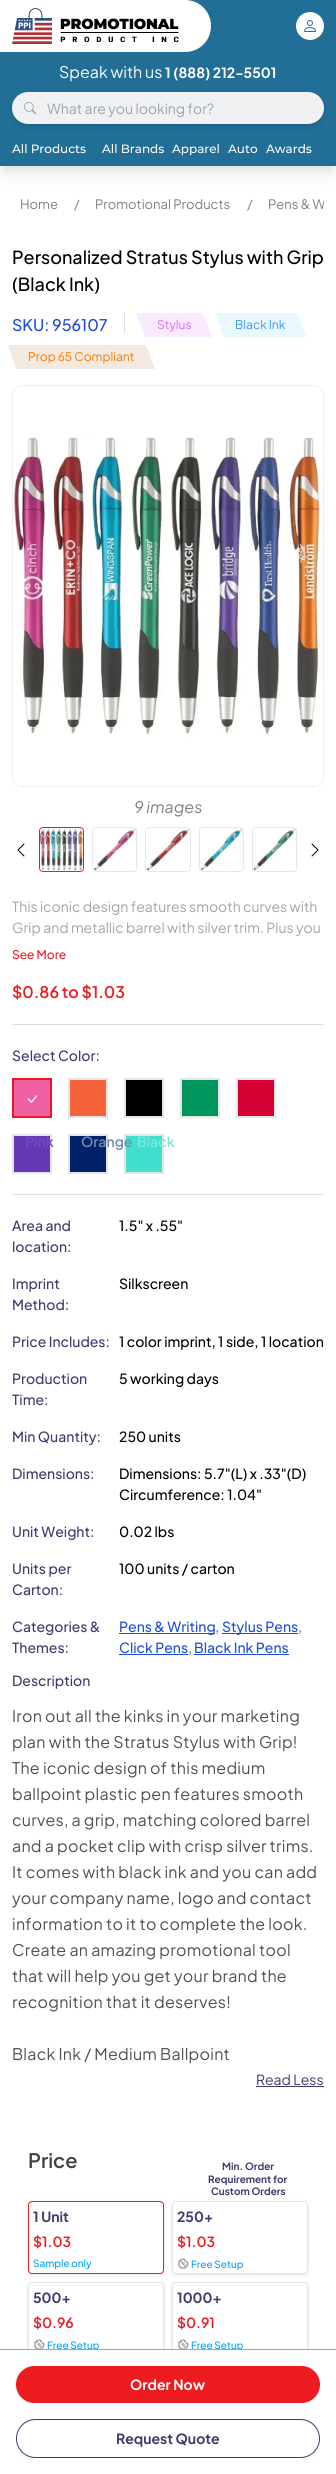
#include <cairo.h>
#include <math.h>
#include <stddef.h>

static cairo_t *c;
static void C(unsigned color){cairo_set_source_rgb(c, (color >> 16) / 255.0, (color >> 8 & 255) / 255.0, (color & 255) / 255.0);}
static void F(const char *family, double size, int italic, int bold){cairo_select_font_face(c, family, italic ? CAIRO_FONT_SLANT_ITALIC : CAIRO_FONT_SLANT_NORMAL,bold ? CAIRO_FONT_WEIGHT_BOLD : CAIRO_FONT_WEIGHT_NORMAL);cairo_set_font_size(c, size);}
static void T(double x, double y, const char *s){cairo_move_to(c, x, y);cairo_show_text(c, s);}
static void L(double x, double y, const char *s, double letter, double word){cairo_move_to(c, x, y);while (*s) {char ch[5] = {0};int n = 0;do ch[n++] = *s++; while ((*s & 0xC0) == 0x80);cairo_show_text(c, ch);cairo_rel_move_to(c, letter + word * (*ch == ' '), 0);}}
static void R(double x, double y, double w, double h){cairo_rectangle(c, x, y, w, h);cairo_fill(c);}
static void Q(double x, double y, double w, double h, double r){cairo_new_sub_path(c);cairo_arc(c, x + w - r, y + h - r, r, 0, M_PI / 2);cairo_arc(c, x + r, y + h - r, r, M_PI / 2, M_PI);cairo_arc(c, x + r, y + r, r, M_PI, 1.5 * M_PI);cairo_arc(c, x + w - r, y + r, r, 1.5 * M_PI, 2 * M_PI);cairo_close_path(c);}
static void S(double x, double y, double w, double h, double r, double blur, double alpha){cairo_push_group_with_content(c, CAIRO_CONTENT_ALPHA);cairo_set_operator(c, CAIRO_OPERATOR_SOURCE);for (int i = 15; i >= -15 && fmin(w, h) + blur * i / 3 > 0; i -= 2) {double e = blur * i / 6;cairo_set_source_rgba(c, 0, 0, 0, alpha * erfc((i - 1) / 8.5) / 2);Q(x - e, y - e, w + 2 * e, h + 2 * e, fmax(0, fmin(r + e + blur * .6, fmin(w, h) / 2 + e)));cairo_fill(c);}cairo_pattern_t *soft = cairo_pop_group(c);cairo_mask(c, soft);cairo_pattern_destroy(soft);}
static void I(const char *path, double x, double y, double w, double h){cairo_surface_t *image = cairo_image_surface_create_from_png(path);cairo_save(c);cairo_set_source_surface(c, image, x, y);cairo_rectangle(c, x, y, w, h);cairo_fill(c);cairo_restore(c);cairo_surface_destroy(image);}
int main(void) {
cairo_surface_t *surface = cairo_image_surface_create(CAIRO_FORMAT_RGB24, 336, 2474);
c = cairo_create(surface);
cairo_font_options_t *options = cairo_font_options_create();
cairo_font_options_set_hint_metrics(options, CAIRO_HINT_METRICS_OFF);
cairo_font_options_set_hint_style(options, CAIRO_HINT_STYLE_NONE);
cairo_set_font_options(c, options);
cairo_set_miter_limit(c, 4);
C(0xffffff);
cairo_paint(c);
C(0x000000);
S(4,8,328,158,0,3,.1);
S(3,13,330,160,0,7.5,.1);
C(0x216e97);
R(0,0,336,166);
C(0xffffff);
cairo_new_path(c);
cairo_move_to(c,12,0);
cairo_line_to(c,185,0);
cairo_curve_to(c,199.5,0,211,11.5,211,26);
cairo_curve_to(c,211,40.5,199.5,52,185,52);
cairo_line_to(c,12,52);
cairo_close_path(c);
cairo_fill(c);
R(0,0,12,52);
I("1.png",12,8,40,36);
I("2.png",60,18,119,25);
cairo_arc(c,310,26,14,0,2 * M_PI);
cairo_fill(c);
I("3.png",304,20,12,12);
F("Plus Jakarta Sans",16,0,0);
T(59,78,"Speak with us");
F("Plus Jakarta Sans",14,0,1);
T(165,78,"1 (888) 212-5501");
C(0x000000);
S(14,96,308,28,14,2,.1);
S(13,97,310,30,15,3,.1);
C(0xf0f1f2);
Q(12,92,312,32,16);
cairo_fill(c);
I("4.png",24,102,12,12);
F("Plus Jakarta Sans",14,0,0);
C(0x9ca3af);
T(47,114,"What are you looking for?");
F("Montserrat Medium",12,0,0);
C(0xffffff);
T(12,153,"All Products");
T(102,153,"All Brands");
T(172,153,"Apparel");
T(228,153,"Auto");
T(266,153,"Awards");
F("Plus Jakarta Sans",13,0,0);
C(0x808080);
T(20,209,"Home");
T(74,209,"/");
T(95,209,"Promotional Products");
T(247,209,"/");
cairo_save(c);
cairo_rectangle(c,12,198,312,13);
cairo_clip(c);
T(268,209,"Pens & W");
cairo_restore(c);
F("Plus Jakarta Sans Medium",18,0,0);
C(0x000000);
T(12,264,"Personalized Stratus Stylus with Grip");
T(12,291,"(Black Ink)");
F("Plus Jakarta Sans Medium",16,0,0);
C(0x1d4ed8);
T(12,331,"SKU: 956107");
C(0xdddddd);
R(124,313,1,20);
C(0xfbe9ff);
cairo_new_path(c);
cairo_move_to(c,136,313);
cairo_line_to(c,203,313);
cairo_line_to(c,212,337);
cairo_line_to(c,145,337);
cairo_close_path(c);
cairo_fill(c);
F("Plus Jakarta Sans",12,0,0);
C(0xe065ff);
T(157,329,"Stylus");
C(0xe9f7ff);
cairo_new_path(c);
cairo_move_to(c,215,313);
cairo_line_to(c,297,313);
cairo_line_to(c,306,337);
cairo_line_to(c,224,337);
cairo_close_path(c);
cairo_fill(c);
C(0x3699ff);
T(235,329,"Black Ink");
C(0xf4e9df);
cairo_new_path(c);
cairo_move_to(c,8,345);
cairo_line_to(c,146,345);
cairo_line_to(c,155,369);
cairo_line_to(c,16,369);
cairo_close_path(c);
cairo_fill(c);
C(0xff7900);
T(28,361,"Prop 65 Compliant");
Q(12.5,385.5,311,401,9.5);
C(0xeeeeee);
cairo_set_line_width(c,1);
cairo_stroke(c);
I("5.png",13,436,310,301);
F("Plus Jakarta Sans",16,1,0);
C(0x808080);
T(134,813,"9 images");
I("6.png",17,843,8,14);
Q(39.5,827.5,44,44,3.5);
C(0xed1a20);
cairo_stroke(c);
I("7.png",40,828,43,43);
Q(92.5,827.5,44,44,3.5);
C(0xe5e7eb);
cairo_stroke(c);
I("8.png",93,828,43,43);
Q(145.5,827.5,45,44,3.5);
cairo_stroke(c);
I("9.png",146,828,44,43);
Q(199.5,827.5,44,44,3.5);
cairo_stroke(c);
I("10.png",200,828,43,43);
Q(252.5,827.5,44,44,3.5);
cairo_stroke(c);
I("11.png",253,828,43,43);
I("12.png",311,843,8,14);
F("Plus Jakarta Sans",14,0,0);
C(0xa3a3a3);
T(12,912,"This iconic design features smooth curves with");
T(12,933,"Grip and metallic barrel with silver trim. Plus you");
F("Plus Jakarta Sans Medium",12,0,0);
C(0xed1a20);
T(12,959,"See More");
F("Plus Jakarta Sans SemiBold",16,0,0);
T(12,998,"$0.86 to $1.03");
C(0xdddddd);
R(12,1024,312,1);
F("Plus Jakarta Sans Medium",14,0,0);
C(0x3c3b6e);
T(12,1061,"Select Color:");
cairo_rectangle(c,181,1079,38,38);
C(0xe5e5e5);
cairo_set_line_width(c,2);
cairo_stroke(c);
C(0x01965e);
R(182,1080,36,36);
cairo_rectangle(c,237,1079,38,38);
C(0xe5e5e5);
cairo_stroke(c);
C(0xd50133);
R(238,1080,36,36);
cairo_rectangle(c,13,1135,38,38);
C(0xe5e5e5);
cairo_stroke(c);
C(0x6638b5);
R(14,1136,36,36);
cairo_rectangle(c,69,1135,38,38);
C(0xe5e5e5);
cairo_stroke(c);
C(0x012269);
R(70,1136,36,36);
cairo_rectangle(c,125,1135,38,38);
C(0xe5e5e5);
cairo_stroke(c);
C(0x40e0d0);
R(126,1136,36,36);
cairo_rectangle(c,13,1079,38,38);
C(0xed1a20);
cairo_stroke(c);
C(0xf061a3);
R(14,1080,36,36);
I("13.png",27,1095,11,8);
F("Plus Jakarta Sans SemiBold",14,0,0);
C(0x744bbb);
T(25,1147,"Pink");
cairo_rectangle(c,69,1079,38,38);
C(0xe5e5e5);
cairo_stroke(c);
C(0xf5633a);
R(70,1080,36,36);
C(0x6a8faf);
T(81,1147,"Orange");
cairo_rectangle(c,125,1079,38,38);
C(0xe5e5e5);
cairo_stroke(c);
C(0x000000);
R(126,1080,36,36);
C(0x78e8dd);
T(137,1147,"Black");
C(0xdddddd);
R(12,1194,312,1);
F("Plus Jakarta Sans Medium",14,0,0);
C(0x3c3b6e);
T(12,1231,"Area and");
T(12,1252,"location:");
C(0x000000);
T(119,1231,"1.5\" x .55\"");
C(0x3c3b6e);
T(12,1289,"Imprint");
T(12,1310,"Method:");
C(0x000000);
T(119,1289,"Silkscreen");
C(0x3c3b6e);
T(12,1347,"Price Includes:");
C(0x000000);
T(119,1347,"1 color imprint, 1 side, 1 location");
C(0x3c3b6e);
T(12,1384,"Production");
T(12,1405,"Time:");
C(0x000000);
T(119,1384,"5 working days");
C(0x3c3b6e);
T(12,1442,"Min Quantity:");
C(0x000000);
T(119,1442,"250 units");
C(0x3c3b6e);
T(12,1479,"Dimensions:");
C(0x000000);
T(119,1479,"Dimensions: 5.7\"(L) x .33\"(D)");
T(119,1500,"Circumference: 1.04\"");
C(0x3c3b6e);
T(12,1537,"Unit Weight:");
C(0x000000);
T(119,1537,"0.02 lbs");
C(0x3c3b6e);
T(12,1574,"Units per");
T(12,1595,"Carton:");
C(0x000000);
T(119,1574,"100 units / carton");
C(0x3c3b6e);
T(12,1632,"Categories &");
T(12,1653,"Themes:");
C(0x1d4ed8);
R(119,1633,96,1);
T(119,1632,"Pens & Writing");
C(0x737373);
T(215,1632,",");
C(0x1d4ed8);
R(222,1633,76,1);
T(222,1632,"Stylus Pens");
C(0x737373);
T(298,1632,",");
C(0x1d4ed8);
T(119,1653,"Click Pens");
R(119,1654,69,1);
C(0x737373);
T(188,1653,",");
C(0x1d4ed8);
T(194,1653,"Black Ink Pens");
R(194,1654,95,1);
C(0x3c3b6e);
T(12,1686,"Description");
F("Plus Jakarta Sans",16,0,0);
C(0x505050);
L(12,1722,"Iron out all the kinks in your marketing",.25,0);
L(12,1748,"plan with the Stratus Stylus with Grip!",.25,0);
L(12,1774,"The iconic design of this medium",.25,0);
L(12,1800,"ballpoint plastic pen features smooth",.25,0);
L(12,1826,"curves, a grip, matching colored barrel",.25,0);
L(12,1852,"and a pocket clip with crisp silver trims.",.25,0);
L(12,1878,"It comes with black ink and you can add",.25,0);
L(12,1904,"your company name, logo and contact",.25,0);
L(12,1930,"information to it to complete the look.",.25,0);
L(12,1956,"Create an amazing promotional tool",.25,0);
L(12,1982,"that will help you get your brand the",.25,0);
L(12,2008,"recognition that it deserves!",.25,0);
L(12,2060,"Black Ink / Medium Ballpoint",.25,0);
F("Plus Jakarta Sans",14,0,0);
C(0x3c3b6e);
T(256,2085,"Read Less");
R(256,2086,68,1);
F("Plus Jakarta Sans SemiBold",20,0,0);
C(0x404040);
T(28,2168,"Price");
F("Plus Jakarta Sans",10,0,1);
C(0x3c3b6e);
T(222,2170,"Min. Order");
T(208,2183,"Requirement for");
T(211,2195,"Custom Orders");
cairo_save(c);
cairo_set_fill_rule(c,CAIRO_FILL_RULE_EVEN_ODD);
cairo_new_path(c);
cairo_move_to(c,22,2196);
cairo_line_to(c,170,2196);
cairo_line_to(c,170,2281);
cairo_line_to(c,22,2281);
cairo_close_path(c);
cairo_move_to(c,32,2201);
cairo_line_to(c,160,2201);
cairo_curve_to(c,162,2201,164,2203,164,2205);
cairo_line_to(c,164,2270);
cairo_curve_to(c,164,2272,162,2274,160,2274);
cairo_line_to(c,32,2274);
cairo_curve_to(c,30,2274,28,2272,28,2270);
cairo_line_to(c,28,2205);
cairo_curve_to(c,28,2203,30,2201,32,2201);
cairo_close_path(c);
cairo_clip(c);
C(0x000000);
S(28,2202,136,73,4,1.5,.1);
cairo_restore(c);
Q(28.5,2201.5,135,72,3.5);
C(0xed1a20);
cairo_set_line_width(c,1);
cairo_stroke(c);
F("Plus Jakarta Sans",14,0,1);
C(0x3c3b6e);
T(33,2222,"1 Unit");
F("Plus Jakarta Sans SemiBold",14,0,0);
C(0xed1a20);
T(33,2247,"$1.03");
F("Plus Jakarta Sans Medium",10,0,0);
C(0x00a2fd);
T(33,2267,"Sample only");
cairo_save(c);
cairo_set_fill_rule(c,CAIRO_FILL_RULE_EVEN_ODD);
cairo_new_path(c);
cairo_move_to(c,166,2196);
cairo_line_to(c,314,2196);
cairo_line_to(c,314,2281);
cairo_line_to(c,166,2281);
cairo_close_path(c);
cairo_move_to(c,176,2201);
cairo_line_to(c,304,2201);
cairo_curve_to(c,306,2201,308,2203,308,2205);
cairo_line_to(c,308,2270);
cairo_curve_to(c,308,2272,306,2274,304,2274);
cairo_line_to(c,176,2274);
cairo_curve_to(c,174,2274,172,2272,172,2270);
cairo_line_to(c,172,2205);
cairo_curve_to(c,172,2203,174,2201,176,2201);
cairo_close_path(c);
cairo_clip(c);
C(0x000000);
S(172,2202,136,73,4,1.5,.1);
cairo_restore(c);
Q(172.5,2201.5,135,72,3.5);
C(0xe4e4e4);
cairo_stroke(c);
F("Plus Jakarta Sans",14,0,1);
C(0x3c3b6e);
T(177,2222,"250+");
F("Plus Jakarta Sans SemiBold",14,0,0);
C(0xed1a20);
T(177,2247,"$1.03");
I("14.png",178,2258,11,11);
F("Plus Jakarta Sans Medium",10,0,0);
C(0x00a2fd);
T(191,2268,"Free Setup");
cairo_save(c);
cairo_set_fill_rule(c,CAIRO_FILL_RULE_EVEN_ODD);
cairo_new_path(c);
cairo_move_to(c,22,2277);
cairo_line_to(c,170,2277);
cairo_line_to(c,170,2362);
cairo_line_to(c,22,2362);
cairo_close_path(c);
cairo_move_to(c,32,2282);
cairo_line_to(c,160,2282);
cairo_curve_to(c,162,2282,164,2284,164,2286);
cairo_line_to(c,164,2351);
cairo_curve_to(c,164,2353,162,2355,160,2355);
cairo_line_to(c,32,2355);
cairo_curve_to(c,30,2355,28,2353,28,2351);
cairo_line_to(c,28,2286);
cairo_curve_to(c,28,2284,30,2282,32,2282);
cairo_close_path(c);
cairo_clip(c);
C(0x000000);
S(28,2283,136,73,4,1.5,.1);
cairo_restore(c);
Q(28.5,2282.5,135,72,3.5);
C(0xe4e4e4);
cairo_stroke(c);
F("Plus Jakarta Sans",14,0,1);
C(0x3c3b6e);
T(33,2303,"500+");
F("Plus Jakarta Sans SemiBold",14,0,0);
C(0xed1a20);
T(33,2328,"$0.96");
I("15.png",34,2339,11,10);
F("Plus Jakarta Sans Medium",10,0,0);
C(0x00a2fd);
T(47,2349,"Free Setup");
cairo_save(c);
cairo_set_fill_rule(c,CAIRO_FILL_RULE_EVEN_ODD);
cairo_new_path(c);
cairo_move_to(c,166,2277);
cairo_line_to(c,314,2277);
cairo_line_to(c,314,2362);
cairo_line_to(c,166,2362);
cairo_close_path(c);
cairo_move_to(c,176,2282);
cairo_line_to(c,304,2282);
cairo_curve_to(c,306,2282,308,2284,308,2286);
cairo_line_to(c,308,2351);
cairo_curve_to(c,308,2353,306,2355,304,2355);
cairo_line_to(c,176,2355);
cairo_curve_to(c,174,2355,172,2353,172,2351);
cairo_line_to(c,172,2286);
cairo_curve_to(c,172,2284,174,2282,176,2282);
cairo_close_path(c);
cairo_clip(c);
C(0x000000);
S(172,2283,136,73,4,1.5,.1);
cairo_restore(c);
Q(172.5,2282.5,135,72,3.5);
C(0xe4e4e4);
cairo_stroke(c);
F("Plus Jakarta Sans",14,0,1);
C(0x3c3b6e);
T(177,2303,"1000+");
F("Plus Jakarta Sans SemiBold",14,0,0);
C(0xed1a20);
T(177,2328,"$0.91");
I("15.png",178,2339,11,10);
F("Plus Jakarta Sans Medium",10,0,0);
C(0x00a2fd);
T(191,2349,"Free Setup");
C(0xffffff);
R(26,2350,284,8);
C(0xa3a3a3);
R(0,2349,336,1);
C(0xed1a20);
Q(16,2366,304,37,18.5);
cairo_fill(c);
F("Plus Jakarta Sans",14,0,1);
C(0xffffff);
T(130,2390,"Order Now");
Q(16.5,2419.5,303,38,19);
C(0x3c3b6e);
cairo_stroke(c);
T(116,2444,"Request Quote");
cairo_surface_write_to_png(surface, "o.png");
cairo_font_options_destroy(options);
cairo_destroy(c);
cairo_surface_destroy(surface);
return 0;
}
